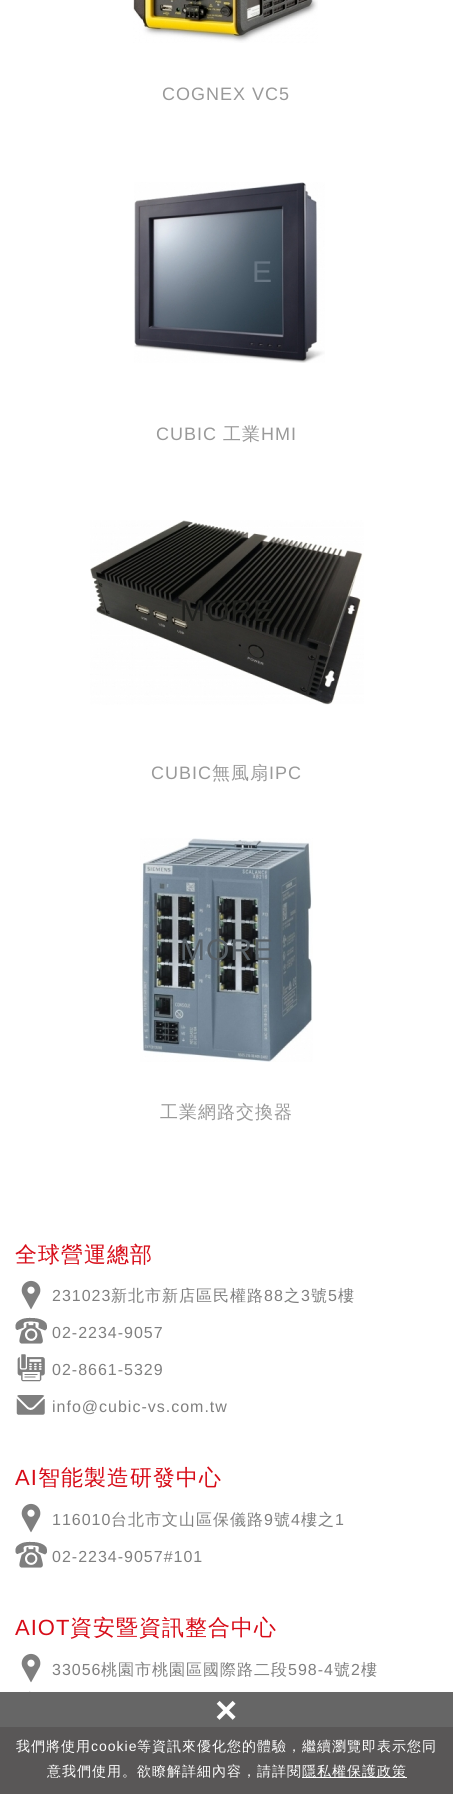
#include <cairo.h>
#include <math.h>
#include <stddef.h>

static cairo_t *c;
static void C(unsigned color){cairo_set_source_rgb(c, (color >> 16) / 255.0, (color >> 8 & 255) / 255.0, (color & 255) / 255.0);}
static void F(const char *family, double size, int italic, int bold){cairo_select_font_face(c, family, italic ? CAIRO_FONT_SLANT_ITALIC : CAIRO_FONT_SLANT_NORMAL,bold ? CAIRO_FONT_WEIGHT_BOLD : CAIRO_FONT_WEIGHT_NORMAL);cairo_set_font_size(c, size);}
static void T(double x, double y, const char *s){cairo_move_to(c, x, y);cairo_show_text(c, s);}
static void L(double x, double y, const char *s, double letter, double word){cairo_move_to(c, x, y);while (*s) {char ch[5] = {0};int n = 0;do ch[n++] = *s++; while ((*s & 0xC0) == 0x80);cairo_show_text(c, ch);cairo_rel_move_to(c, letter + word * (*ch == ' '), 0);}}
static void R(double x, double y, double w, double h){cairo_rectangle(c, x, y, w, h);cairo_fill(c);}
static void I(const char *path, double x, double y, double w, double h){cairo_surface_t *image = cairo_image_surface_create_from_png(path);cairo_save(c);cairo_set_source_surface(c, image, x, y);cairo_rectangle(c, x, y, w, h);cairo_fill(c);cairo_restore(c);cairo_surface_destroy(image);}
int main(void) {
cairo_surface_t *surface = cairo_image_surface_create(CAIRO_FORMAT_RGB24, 453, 1794);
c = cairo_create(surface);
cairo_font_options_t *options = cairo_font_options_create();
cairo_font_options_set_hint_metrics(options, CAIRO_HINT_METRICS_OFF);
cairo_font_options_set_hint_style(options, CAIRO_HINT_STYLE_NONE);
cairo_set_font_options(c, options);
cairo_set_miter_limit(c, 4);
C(0xffffff);
cairo_paint(c);
I("1.png",133,0,185,43);
F("Liberation Sans",18,0,0);
C(0x999999);
L(162,100,"COGNEX VC5",1,0);
I("2.png",134,182,191,181);
F("Liberation Sans",30,0,0);
C(0x677582);
L(252,282,"E",1,0);
F("Liberation Sans",18,0,0);
C(0x999999);
L(156,440,"CUBIC",1,0);
F("WenQuanYi Zen Hei Medium",18,0,0);
L(223,440,"工業",1,0);
F("Liberation Sans",18,0,0);
L(261,440,"HMI",1,0);
I("3.png",90,520,274,185);
F("Liberation Sans",30,0,0);
C(0x1f201d);
L(180,621,"MORE",1,0);
F("Liberation Sans",18,0,0);
C(0x999999);
L(151,779,"CUBIC",1,0);
F("WenQuanYi Zen Hei Medium",18,0,0);
L(212,779,"無風扇",1,0);
F("Liberation Sans",18,0,0);
L(269,779,"IPC",1,0);
I("4.png",140,838,173,224);
F("Liberation Sans",30,0,0);
C(0x586066);
L(180,960,"MORE",1,0);
F("WenQuanYi Zen Hei Medium",18,0,0);
C(0x999999);
L(160,1118,"工業網路交換器",1,0);
F("WenQuanYi Zen Hei Medium",22,0,0);
C(0xd70c18);
L(15,1262,"全球營運總部",1,0);
I("5.png",21,1280,20,30);
F("Liberation Sans",16,0,0);
C(0x7f7f7f);
L(52,1301,"231023",1,0);
F("WenQuanYi Zen Hei Medium",16,0,0);
L(111,1301,"新北市新店區民權路",1,0);
F("Liberation Sans",16,0,0);
L(264,1301,"88",1,0);
F("WenQuanYi Zen Hei Medium",16,0,0);
L(284,1301,"之",1,0);
F("Liberation Sans",16,0,0);
L(301,1301,"3",1,0);
F("WenQuanYi Zen Hei Medium",16,0,0);
L(311,1301,"號",1,0);
F("Liberation Sans",16,0,0);
L(328,1301,"5",1,0);
F("WenQuanYi Zen Hei Medium",16,0,0);
L(338,1301,"樓",1,0);
I("6.png",15,1317,32,27);
F("Liberation Sans",16,0,0);
L(52,1338,"02-2234-9057",1,0);
I("7.png",17,1354,28,28);
L(52,1375,"02-8661-5329",1,0);
I("8.png",16,1395,29,20);
L(52,1412,"info@cubic-vs.com.tw",1,0);
F("Liberation Sans",22,0,0);
C(0xd70c18);
L(15,1485,"AI",1,0);
F("WenQuanYi Zen Hei Medium",22,0,0);
L(38,1485,"智能製造研發中心",1,0);
I("5.png",21,1503,20,30);
F("Liberation Sans",16,0,0);
C(0x7f7f7f);
L(52,1525,"116010",1,0);
F("WenQuanYi Zen Hei Medium",16,0,0);
L(111,1525,"台北市文山區保儀路",1,0);
F("Liberation Sans",16,0,0);
L(264,1525,"9",1,0);
F("WenQuanYi Zen Hei Medium",16,0,0);
L(274,1525,"號",1,0);
F("Liberation Sans",16,0,0);
L(291,1525,"4",1,0);
F("WenQuanYi Zen Hei Medium",16,0,0);
L(301,1525,"樓之",1,0);
F("Liberation Sans",16,0,0);
L(335,1525,"1",1,0);
I("6.png",15,1541,32,27);
L(52,1562,"02-2234-9057#101",1,0);
F("Liberation Sans",22,0,0);
C(0xd70c18);
L(15,1635,"AIOT",1,0);
F("WenQuanYi Zen Hei Medium",22,0,0);
L(70,1635,"資安暨資訊整合中心",1,0);
I("5.png",21,1653,20,30);
F("Liberation Sans",16,0,0);
C(0x7f7f7f);
L(52,1675,"33056",1,0);
F("WenQuanYi Zen Hei Medium",16,0,0);
L(101,1675,"桃園市桃園區國際路二段",1,0);
F("Liberation Sans",16,0,0);
L(288,1675,"598-4",1,0);
F("WenQuanYi Zen Hei Medium",16,0,0);
L(334,1675,"號",1,0);
F("Liberation Sans",16,0,0);
L(351,1675,"2",1,0);
F("WenQuanYi Zen Hei Medium",16,0,0);
L(361,1675,"樓",1,0);
I("9.png",29,1691,2,1);
C(0x595757);
R(0,1727,453,67);
C(0x666666);
R(0,1692,453,35);
F("Liberation Sans",38,0,1);
C(0xffffff);
T(215,1723,"×");
F("WenQuanYi Zen Hei Medium",14,0,0);
L(16,1751,"我們將使用",1,0);
F("Liberation Sans",14,0,0);
L(91,1751,"cookie",1,0);
F("WenQuanYi Zen Hei Medium",14,0,0);
L(137,1751,"等資訊來優化您的體驗，繼續瀏覽即表示您同",1,0);
L(47,1776,"意我們使用。欲瞭解詳細內容，請詳閱",1,0);
R(302,1777,105,1);
L(302,1776,"隱私權保護政策",1,0);
cairo_surface_write_to_png(surface, "o.png");
cairo_font_options_destroy(options);
cairo_destroy(c);
cairo_surface_destroy(surface);
return 0;
}
